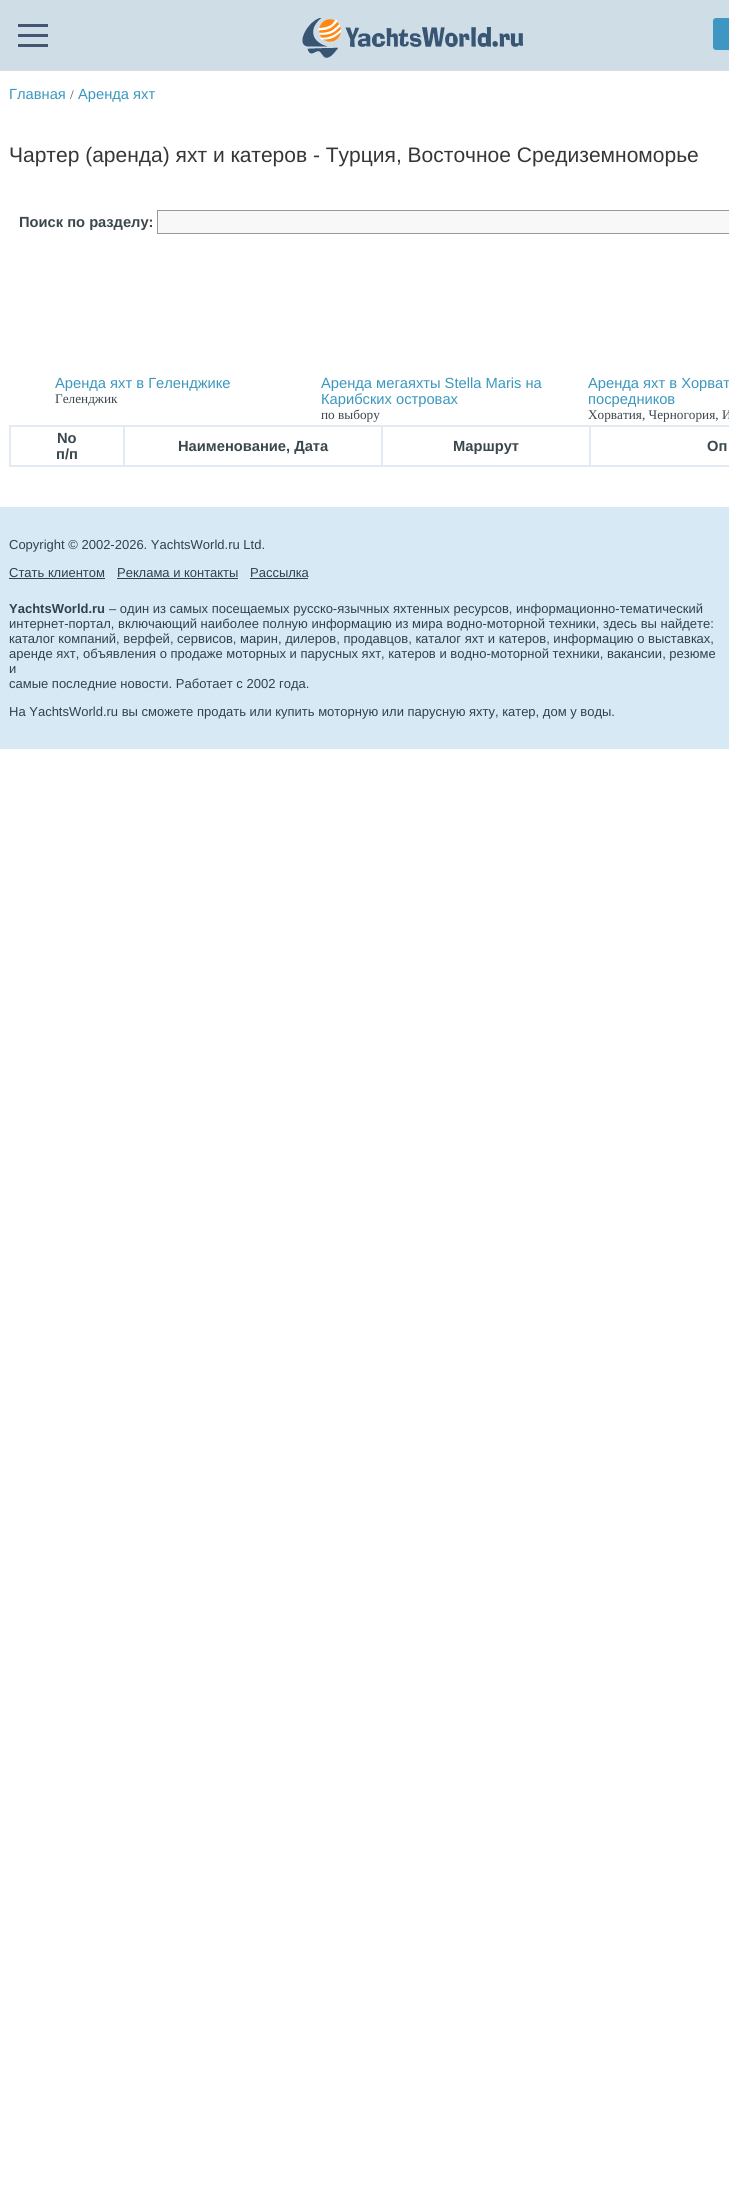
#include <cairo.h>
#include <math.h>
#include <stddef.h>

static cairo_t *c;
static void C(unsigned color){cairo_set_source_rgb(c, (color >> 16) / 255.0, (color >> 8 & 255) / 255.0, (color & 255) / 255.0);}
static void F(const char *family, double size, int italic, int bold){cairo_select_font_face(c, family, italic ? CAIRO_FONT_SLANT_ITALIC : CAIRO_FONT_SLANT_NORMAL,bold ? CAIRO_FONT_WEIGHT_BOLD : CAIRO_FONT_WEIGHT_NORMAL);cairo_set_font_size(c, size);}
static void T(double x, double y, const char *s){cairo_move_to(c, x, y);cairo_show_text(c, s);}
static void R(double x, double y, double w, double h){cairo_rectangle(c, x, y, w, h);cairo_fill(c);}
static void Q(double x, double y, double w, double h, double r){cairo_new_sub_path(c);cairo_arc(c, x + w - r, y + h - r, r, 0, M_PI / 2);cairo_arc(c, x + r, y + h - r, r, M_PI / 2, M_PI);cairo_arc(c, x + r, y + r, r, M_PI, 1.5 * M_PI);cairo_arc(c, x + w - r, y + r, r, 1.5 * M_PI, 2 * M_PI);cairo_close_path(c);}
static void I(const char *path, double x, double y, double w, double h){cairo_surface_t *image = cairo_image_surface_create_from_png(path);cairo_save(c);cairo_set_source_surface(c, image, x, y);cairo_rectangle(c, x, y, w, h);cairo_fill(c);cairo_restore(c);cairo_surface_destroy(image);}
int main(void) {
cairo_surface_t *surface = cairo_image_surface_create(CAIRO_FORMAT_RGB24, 729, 2210);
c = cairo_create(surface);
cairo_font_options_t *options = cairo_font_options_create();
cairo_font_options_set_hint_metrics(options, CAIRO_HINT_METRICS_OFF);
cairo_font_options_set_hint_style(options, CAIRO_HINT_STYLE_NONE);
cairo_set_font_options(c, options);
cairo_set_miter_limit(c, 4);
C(0xffffff);
cairo_paint(c);
C(0xcfdde6);
R(0,0,729,70);
C(0xd8dde1);
R(0,70,729,1);
I("1.png",18,24,30,23);
I("2.png",302,18,221,40);
C(0x3e97c3);
Q(713,18,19,32,3);
cairo_fill(c);
F("Liberation Sans",14.7,0,0);
C(0x3b97be);
T(9,99,"Главная");
F("Liberation Serif",13.25,0,0);
C(0x3a474d);
T(70,99,"/");
F("Liberation Sans",14.7,0,0);
C(0x3b97be);
T(78,99,"Аренда яхт");
F("Liberation Sans",21,0,0);
C(0x363636);
T(9,162,"Чартер (аренда) яхт и катеров - Турция, Восточное Средиземноморье");
F("Liberation Sans",14.7,0,1);
C(0x3a474d);
T(19,227,"Поиск по разделу:");
C(0xf8f8f8);
cairo_rectangle(c,157.5,210.5,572,23);
cairo_fill_preserve(c);
C(0x999999);
cairo_set_line_width(c,1);
cairo_stroke(c);
F("Liberation Sans",14.7,0,0);
C(0x3b97be);
T(55,388,"Аренда яхт в Геленджике");
F("Liberation Serif",13.25,0,0);
C(0x3a474d);
T(55,403,"Геленджик");
F("Liberation Sans",14.7,0,0);
C(0x3b97be);
T(321,388,"Аренда мегаяхты Stella Maris на");
T(321,404,"Карибских островах");
F("Liberation Serif",13.25,0,0);
C(0x3a474d);
T(321,419,"по выбору");
F("Liberation Sans",14.7,0,0);
C(0x3b97be);
T(588,388,"Аренда яхт в Хорват");
T(588,404,"посредников");
F("Liberation Serif",13.25,0,0);
C(0x3a474d);
T(588,419,"Хорватия, Черногория, И");
cairo_rectangle(c,9.5,425.5,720,41);
C(0xe2ebf3);
cairo_stroke(c);
cairo_rectangle(c,10.5,426.5,113,39);
cairo_stroke(c);
F("Liberation Sans",14.7,0,1);
C(0x3a474d);
T(57,443,"No");
T(56,459,"п/п");
cairo_rectangle(c,124.5,426.5,257,39);
C(0xe2ebf3);
cairo_stroke(c);
C(0x3a474d);
T(178,451,"Наименование, Дата");
cairo_rectangle(c,382.5,426.5,207,39);
C(0xe2ebf3);
cairo_stroke(c);
C(0x3a474d);
T(453,451,"Маршрут");
cairo_rectangle(c,590.5,426.5,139,39);
C(0xe2ebf3);
cairo_stroke(c);
C(0x3a474d);
T(707,451,"Оп");
C(0xd7e9f5);
R(0,507,729,242);
F("Liberation Sans",13,0,0);
C(0x2f424d);
T(9,549,"Copyright © 2002-2026. YachtsWorld.ru Ltd.");
T(9,577,"Стать клиентом");
R(9,578,96,1);
T(117,577,"Реклама и контакты");
R(117,578,121,1);
T(250,577,"Рассылка");
R(250,578,58,1);
F("Liberation Sans",13,0,1);
T(9,613,"YachtsWorld.ru");
F("Liberation Sans",13,0,0);
T(109,613,"– один из самых посещаемых русско-язычных яхтенных ресурсов, информационно-тематический");
T(9,628,"интернет-портал, включающий наиболее полную информацию из мира водно-моторной техники, здесь вы найдете:");
T(9,643,"каталог компаний, верфей, сервисов, марин, дилеров, продавцов, каталог яхт и катеров, информацию о выставках,");
T(9,658,"аренде яхт, объявления о продаже моторных и парусных яхт, катеров и водно-моторной техники, вакансии, резюме");
T(9,673,"и");
T(9,688,"самые последние новости. Работает с 2002 года.");
T(9,716,"На YachtsWorld.ru вы сможете продать или купить моторную или парусную яхту, катер, дом у воды.");
cairo_surface_write_to_png(surface, "o.png");
cairo_font_options_destroy(options);
cairo_destroy(c);
cairo_surface_destroy(surface);
return 0;
}
